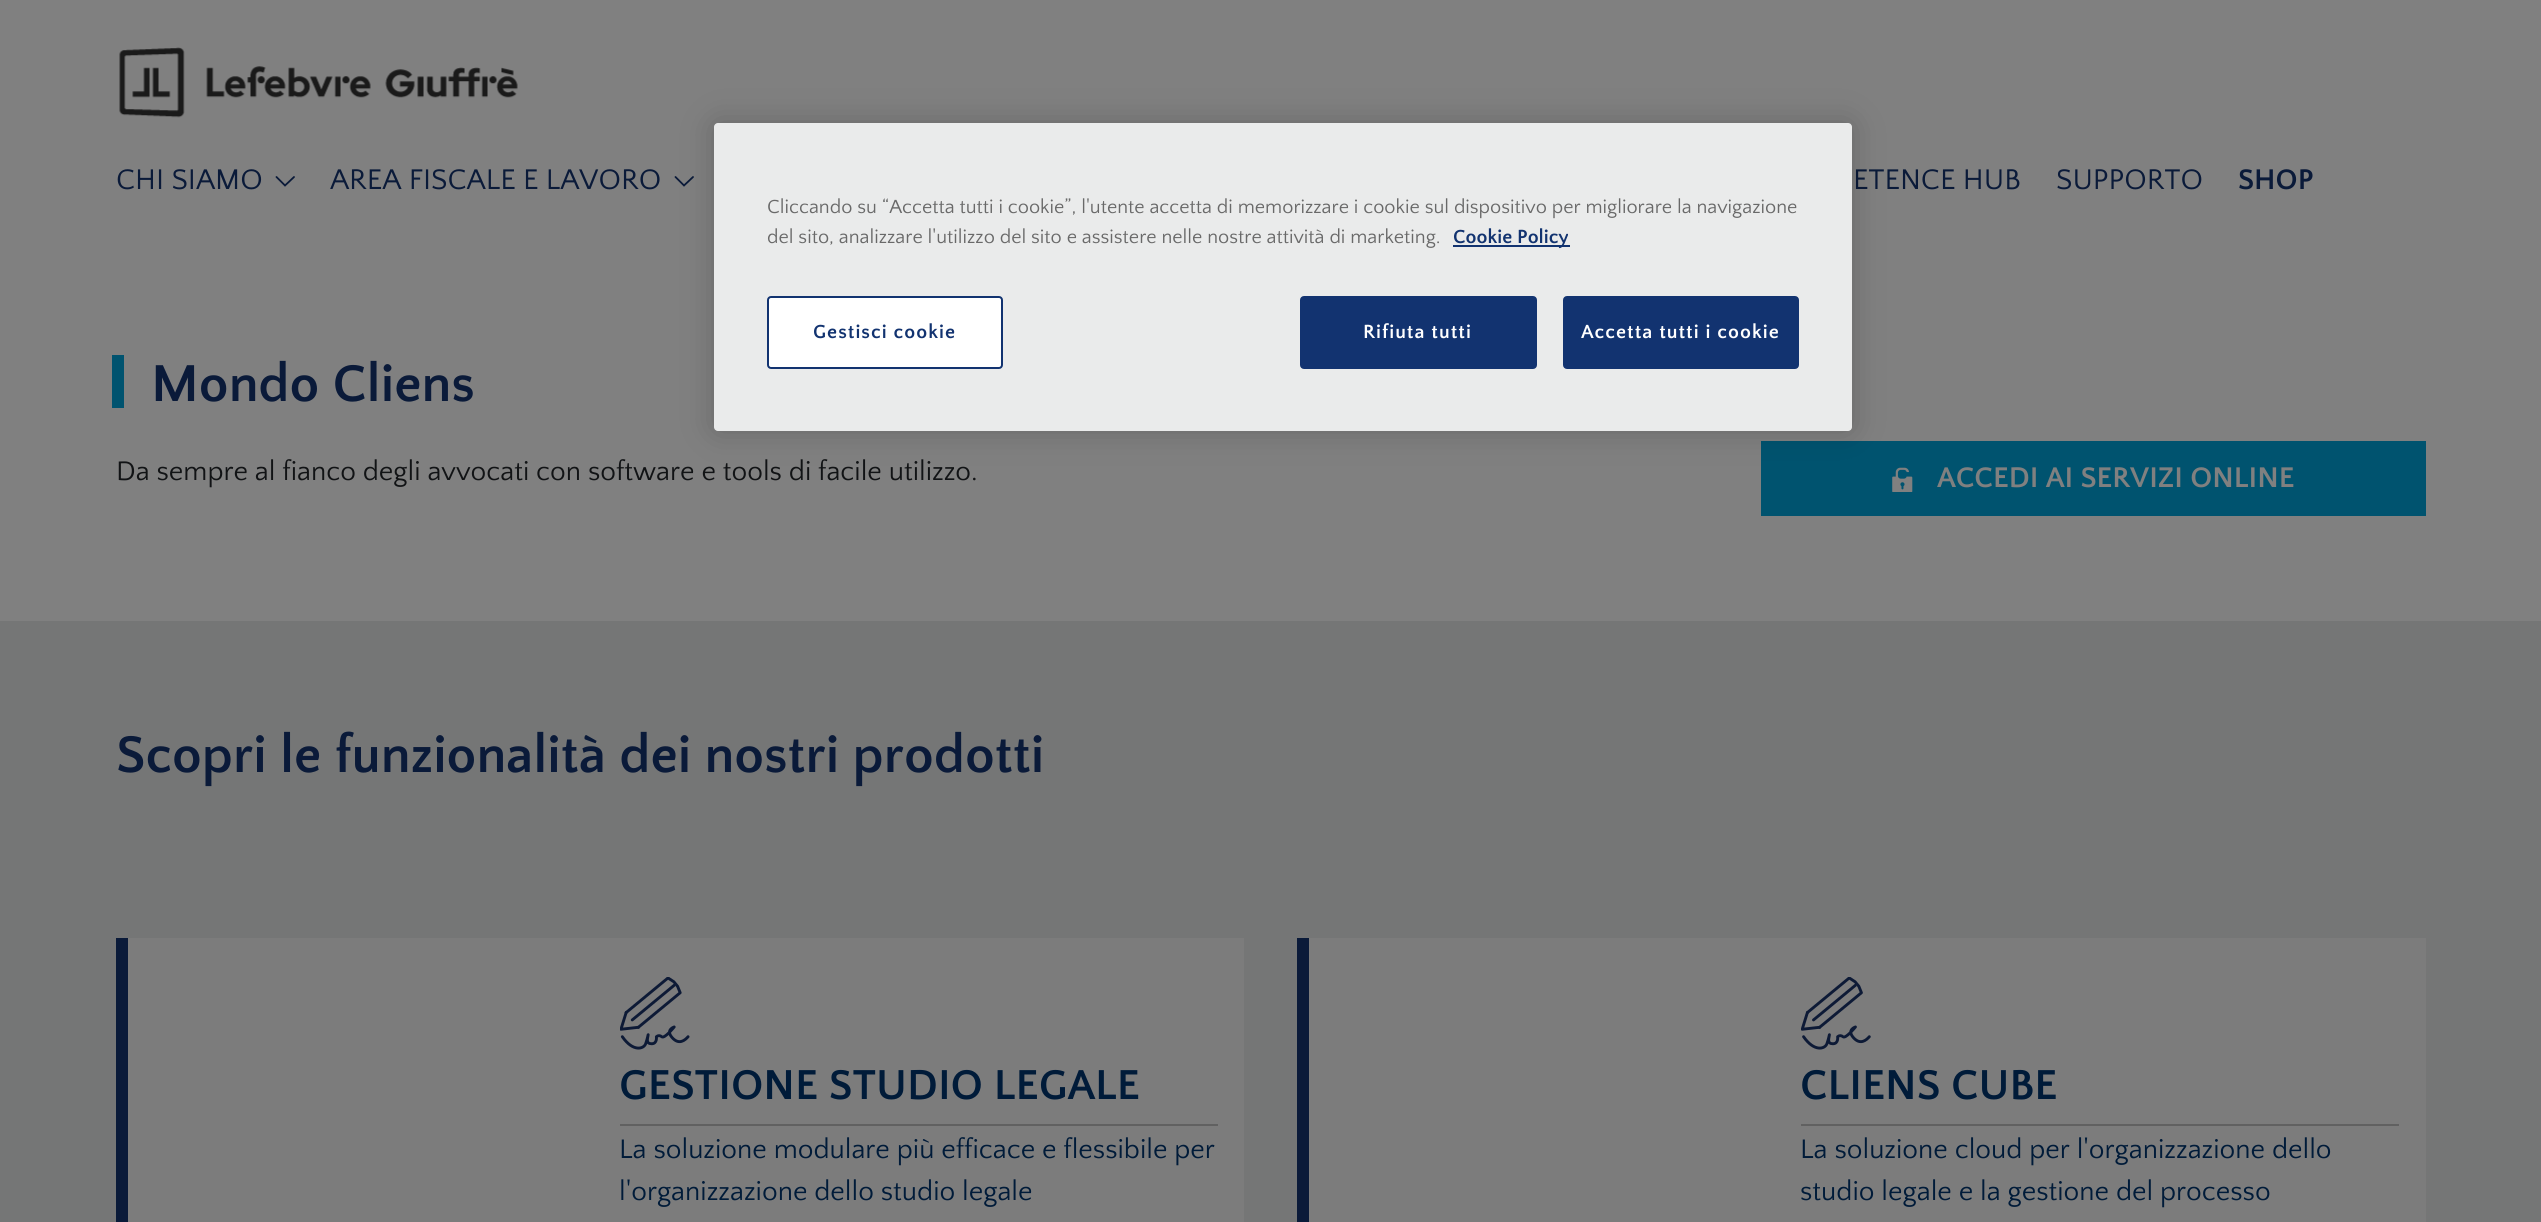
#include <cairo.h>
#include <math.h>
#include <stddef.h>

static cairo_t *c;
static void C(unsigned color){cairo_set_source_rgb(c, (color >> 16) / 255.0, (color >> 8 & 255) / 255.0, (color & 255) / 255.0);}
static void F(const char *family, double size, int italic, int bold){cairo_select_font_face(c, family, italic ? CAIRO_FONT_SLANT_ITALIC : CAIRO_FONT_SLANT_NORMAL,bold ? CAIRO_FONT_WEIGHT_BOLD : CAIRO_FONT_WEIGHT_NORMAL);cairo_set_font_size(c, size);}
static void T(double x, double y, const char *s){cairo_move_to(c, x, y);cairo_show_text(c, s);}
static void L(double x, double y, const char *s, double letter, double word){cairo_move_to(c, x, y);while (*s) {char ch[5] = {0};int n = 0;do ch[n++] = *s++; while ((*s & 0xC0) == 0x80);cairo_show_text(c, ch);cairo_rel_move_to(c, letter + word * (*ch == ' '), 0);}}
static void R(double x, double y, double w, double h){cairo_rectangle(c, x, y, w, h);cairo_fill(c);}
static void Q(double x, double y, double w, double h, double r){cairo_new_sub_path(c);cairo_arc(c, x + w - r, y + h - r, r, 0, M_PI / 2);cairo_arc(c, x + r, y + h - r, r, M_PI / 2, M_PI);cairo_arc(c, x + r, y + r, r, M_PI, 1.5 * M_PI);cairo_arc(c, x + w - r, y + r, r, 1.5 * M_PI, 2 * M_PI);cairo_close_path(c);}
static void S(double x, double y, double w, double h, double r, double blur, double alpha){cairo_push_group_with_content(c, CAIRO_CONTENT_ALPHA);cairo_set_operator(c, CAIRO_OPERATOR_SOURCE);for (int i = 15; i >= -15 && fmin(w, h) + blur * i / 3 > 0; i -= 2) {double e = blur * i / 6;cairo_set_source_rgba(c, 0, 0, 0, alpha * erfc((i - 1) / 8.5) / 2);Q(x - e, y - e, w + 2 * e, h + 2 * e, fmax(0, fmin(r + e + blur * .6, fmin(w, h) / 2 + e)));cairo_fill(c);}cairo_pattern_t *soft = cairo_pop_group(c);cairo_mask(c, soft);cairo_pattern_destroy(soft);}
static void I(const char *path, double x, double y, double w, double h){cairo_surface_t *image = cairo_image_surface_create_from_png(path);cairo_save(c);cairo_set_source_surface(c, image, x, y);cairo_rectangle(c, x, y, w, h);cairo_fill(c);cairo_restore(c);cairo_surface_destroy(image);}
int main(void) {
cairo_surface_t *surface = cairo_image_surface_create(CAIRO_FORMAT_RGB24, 2541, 1222);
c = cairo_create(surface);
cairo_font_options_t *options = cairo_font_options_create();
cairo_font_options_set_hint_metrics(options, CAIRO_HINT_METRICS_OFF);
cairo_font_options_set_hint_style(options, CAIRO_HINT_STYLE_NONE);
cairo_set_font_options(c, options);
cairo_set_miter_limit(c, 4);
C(0x808080);
cairo_paint(c);
I("1.png",119,47,399,71);
F("Quattrocento Sans",29.75,0,0);
C(0x0a1a39);
T(116,189,"CHI SIAMO");
cairo_new_path(c);
cairo_move_to(c,294,177);
cairo_line_to(c,285,185.5);
cairo_line_to(c,276.5,177);
cairo_set_line_width(c,1.8);
cairo_set_line_cap(c,CAIRO_LINE_CAP_ROUND);
cairo_stroke(c);
T(330,189,"AREA FISCALE E LAVORO");
cairo_new_path(c);
cairo_move_to(c,693,177);
cairo_line_to(c,684,185.5);
cairo_line_to(c,675.5,177);
cairo_stroke(c);
T(1853,189,"ETENCE HUB");
T(2056,189,"SUPPORTO");
F("Quattrocento Sans",29.75,0,1);
T(2238,189,"SHOP");
C(0x00536f);
R(112,355,12,53);
F("Quattrocento Sans",54.25,0,1);
C(0x0a1a39);
T(151,401,"Mondo Cliens");
F("Quattrocento Sans",28,0,0);
C(0x111315);
T(116,480,"Da sempre al fianco degli avvocati con software e tools di facile utilizzo.");
C(0x00536f);
R(1761,441,665,75);
I("2.png",1892,467,21,25);
F("Quattrocento Sans",29.75,0,1);
C(0x808080);
T(1937,487,"ACCEDI AI SERVIZI ONLINE");
C(0x757676);
R(0,621,2541,601);
F("Quattrocento Sans",54.25,0,1);
C(0x0a1a39);
T(116,772,"Scopri le funzionalità dei nostri prodotti");
C(0x7c7c7c);
R(128,938,1116,284);
C(0x0a1a39);
R(116,938,12,284);
I("3.png",620,977,70,73);
F("Quattrocento Sans",43.75,0,1);
C(0x001b39);
T(619,1099,"GESTIONE STUDIO LEGALE");
C(0x616161);
R(620,1124,598,2);
F("Quattrocento Sans",28,0,0);
C(0x001b39);
T(619,1158,"La soluzione modulare più efficace e flessibile per");
T(619,1200,"l'organizzazione dello studio legale");
C(0x7c7c7c);
R(1309,938,1117,284);
C(0x0a1a39);
R(1297,938,12,284);
I("4.png",1801,977,70,73);
F("Quattrocento Sans",43.75,0,1);
C(0x001b39);
T(1800,1099,"CLIENS CUBE");
C(0x616161);
R(1801,1124,598,2);
F("Quattrocento Sans",28,0,0);
C(0x001b39);
T(1800,1158,"La soluzione cloud per l'organizzazione dello");
T(1800,1200,"studio legale e la gestione del processo");
C(0x000000);
S(714,123,1138,308,4,16,.2);
C(0xeaebeb);
Q(714,123,1138,308,4);
cairo_fill(c);
F("Quattrocento Sans",19.92,0,0);
C(0x696969);
T(767,213,"Cliccando su “Accetta tutti i cookie”, l'utente accetta di memorizzare i cookie sul dispositivo per migliorare la navigazione");
T(767,243,"del sito, analizzare l'utilizzo del sito e assistere nelle nostre attività di marketing.");
C(0x123370);
R(1453,245,117,2);
F("Quattrocento Sans",19.92,0,1);
T(1453,243,"Cookie Policy");
C(0xffffff);
Q(768,297,234,71,3);
cairo_fill_preserve(c);
C(0x123370);
cairo_set_line_width(c,2);
cairo_set_line_cap(c,CAIRO_LINE_CAP_BUTT);
cairo_stroke(c);
L(813,338,"Gestisci cookie",1,0);
Q(1301,297,235,71,3);
cairo_fill_preserve(c);
cairo_stroke(c);
C(0xffffff);
L(1363,338,"Rifiuta tutti",1,0);
C(0x123370);
Q(1564,297,234,71,3);
cairo_fill_preserve(c);
cairo_stroke(c);
C(0xffffff);
L(1581,338,"Accetta tutti i cookie",1,0);
cairo_surface_write_to_png(surface, "o.png");
cairo_font_options_destroy(options);
cairo_destroy(c);
cairo_surface_destroy(surface);
return 0;
}
